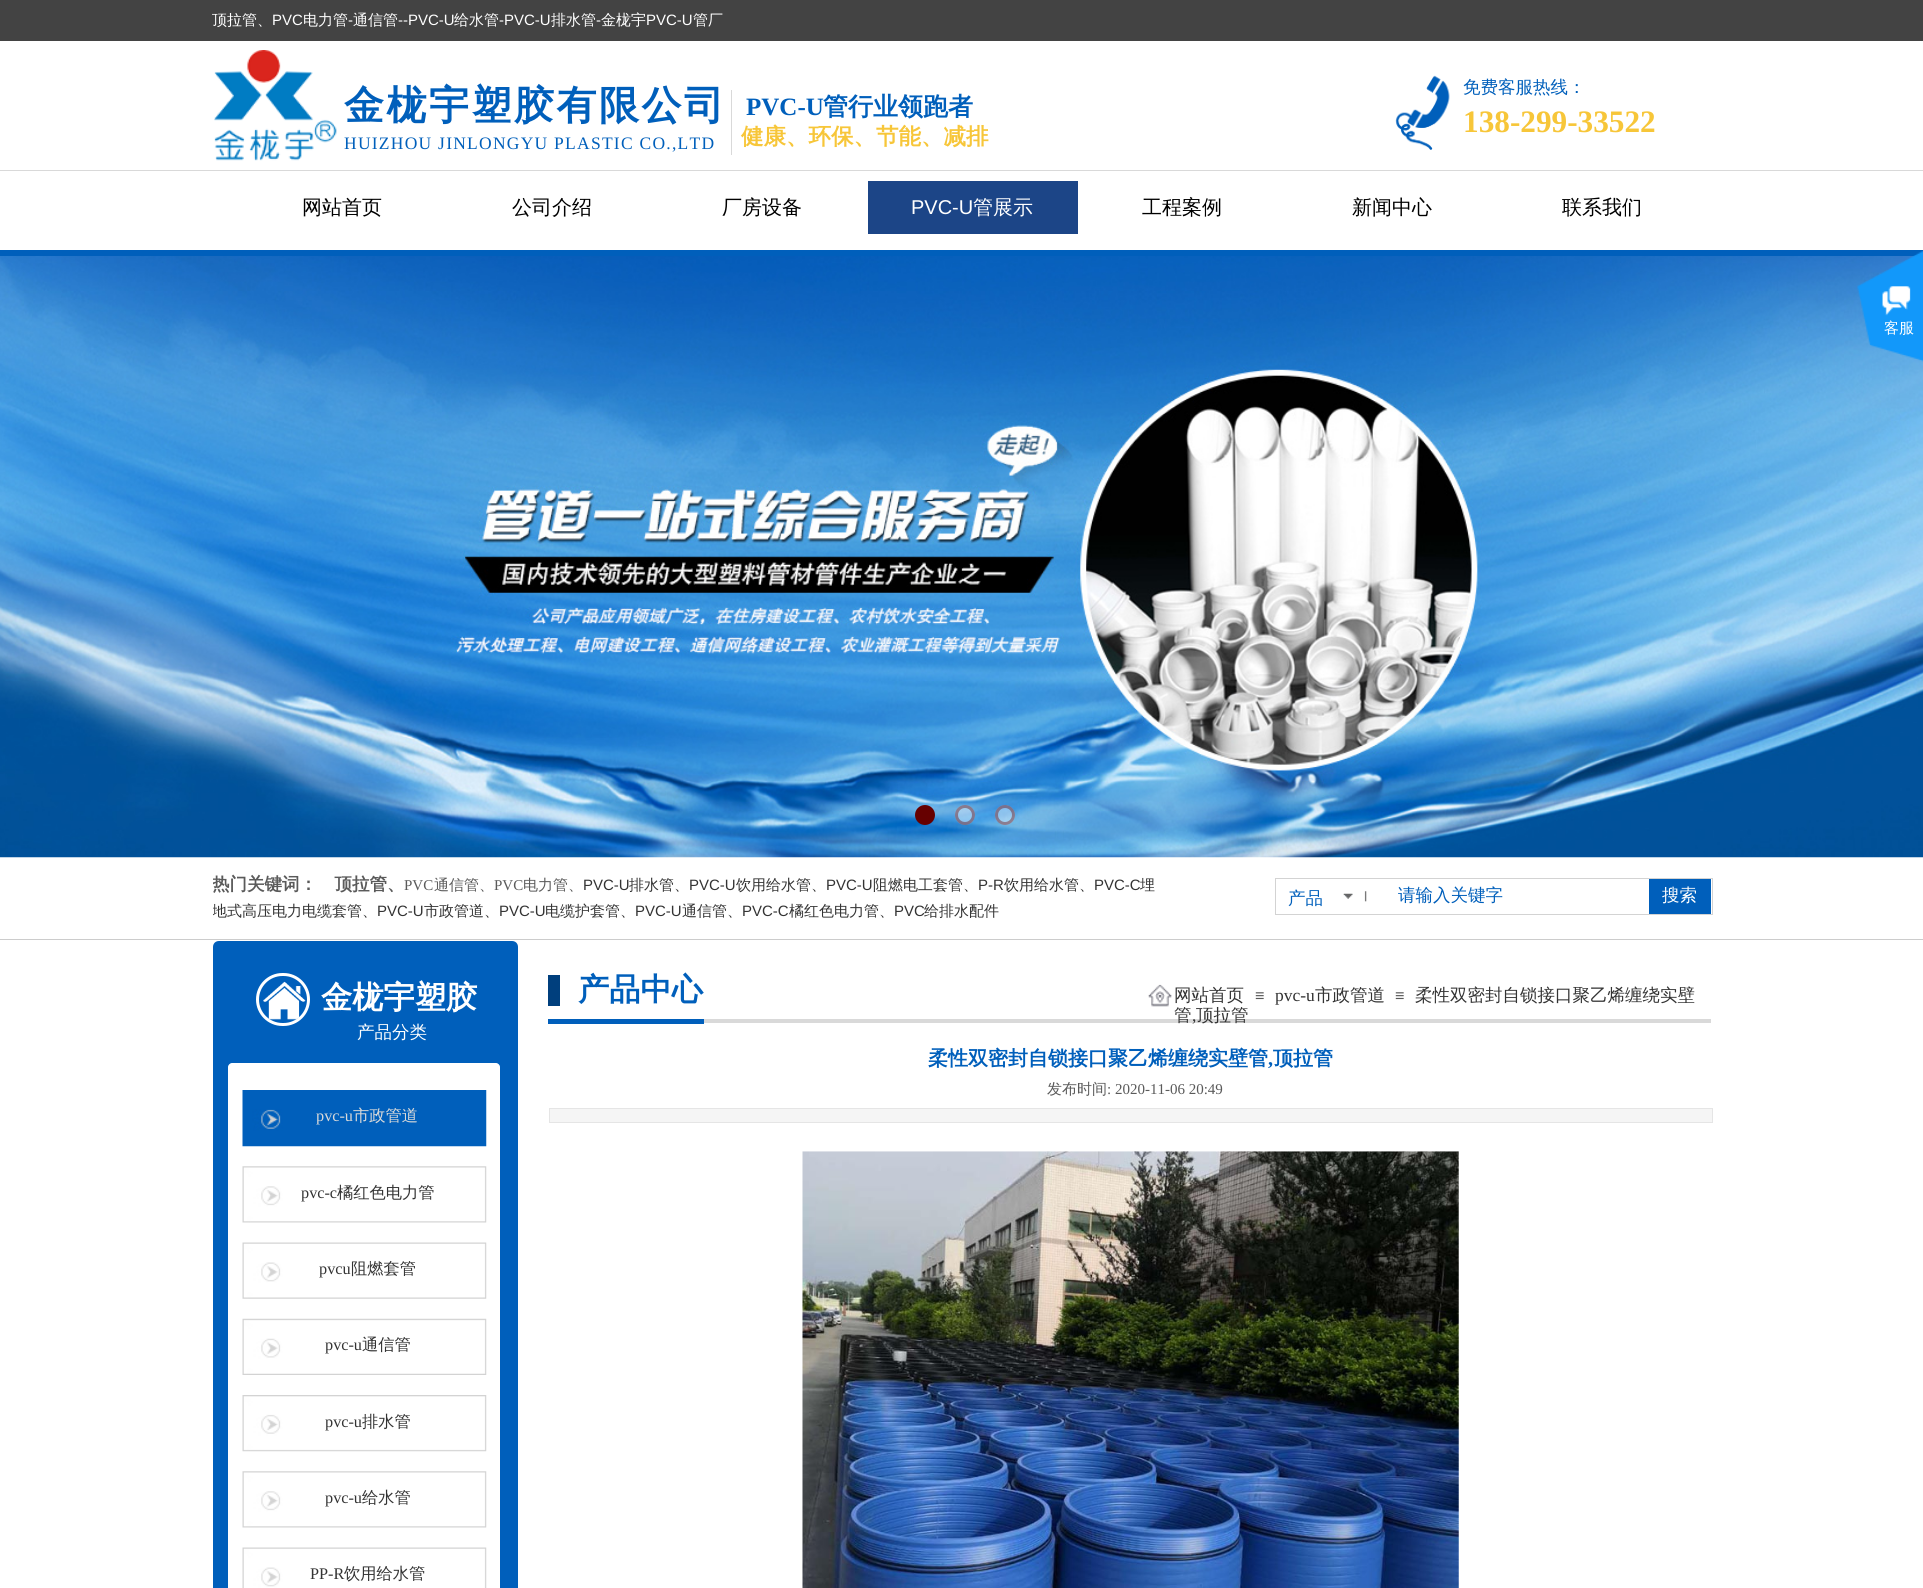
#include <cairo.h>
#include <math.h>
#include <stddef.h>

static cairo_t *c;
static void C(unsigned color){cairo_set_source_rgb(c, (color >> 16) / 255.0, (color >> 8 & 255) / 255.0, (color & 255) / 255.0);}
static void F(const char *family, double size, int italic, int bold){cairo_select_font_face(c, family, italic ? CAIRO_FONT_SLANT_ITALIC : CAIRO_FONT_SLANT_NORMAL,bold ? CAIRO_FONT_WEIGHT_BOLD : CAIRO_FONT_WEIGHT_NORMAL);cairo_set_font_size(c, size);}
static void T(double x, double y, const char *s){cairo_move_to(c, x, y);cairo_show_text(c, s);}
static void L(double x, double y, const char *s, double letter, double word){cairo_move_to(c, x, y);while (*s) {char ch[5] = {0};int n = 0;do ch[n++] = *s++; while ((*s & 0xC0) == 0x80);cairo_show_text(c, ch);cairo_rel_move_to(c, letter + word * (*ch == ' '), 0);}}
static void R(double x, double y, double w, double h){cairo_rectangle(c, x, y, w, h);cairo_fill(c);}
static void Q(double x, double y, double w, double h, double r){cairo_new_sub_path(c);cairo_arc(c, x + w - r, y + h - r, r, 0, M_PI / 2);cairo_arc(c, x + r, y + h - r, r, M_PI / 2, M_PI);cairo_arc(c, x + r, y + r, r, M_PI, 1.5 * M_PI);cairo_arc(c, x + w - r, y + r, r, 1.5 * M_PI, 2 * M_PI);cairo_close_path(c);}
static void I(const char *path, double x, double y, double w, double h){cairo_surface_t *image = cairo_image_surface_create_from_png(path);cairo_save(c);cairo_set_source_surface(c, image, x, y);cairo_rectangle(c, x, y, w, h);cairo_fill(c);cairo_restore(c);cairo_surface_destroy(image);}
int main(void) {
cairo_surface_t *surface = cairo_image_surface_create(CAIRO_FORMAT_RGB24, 1923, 1588);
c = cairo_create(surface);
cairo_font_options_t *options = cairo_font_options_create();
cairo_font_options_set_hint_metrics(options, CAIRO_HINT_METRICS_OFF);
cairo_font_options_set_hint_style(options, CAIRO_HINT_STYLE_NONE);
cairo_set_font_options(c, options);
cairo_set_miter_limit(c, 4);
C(0xffffff);
cairo_paint(c);
C(0x434343);
R(0,0,1923,41);
F("WenQuanYi Zen Hei Medium",15,0,0);
C(0xffffff);
T(212,25,"顶拉管、");
F("Liberation Sans",15,0,0);
T(272,25,"PVC");
F("WenQuanYi Zen Hei Medium",15,0,0);
T(303,25,"电力管");
F("Liberation Sans",15,0,0);
T(348,25,"-");
F("WenQuanYi Zen Hei Medium",15,0,0);
T(353,25,"通信管");
F("Liberation Sans",15,0,0);
T(398,25,"--PVC-U");
F("WenQuanYi Zen Hei Medium",15,0,0);
T(454,25,"给水管");
F("Liberation Sans",15,0,0);
T(499,25,"-PVC-U");
F("WenQuanYi Zen Hei Medium",15,0,0);
T(551,25,"排水管");
F("Liberation Sans",15,0,0);
T(596,25,"-");
F("WenQuanYi Zen Hei Medium",15,0,0);
T(601,25,"金栊宇");
F("Liberation Sans",15,0,0);
T(646,25,"PVC-U");
F("WenQuanYi Zen Hei Medium",15,0,0);
T(693,25,"管厂");
I("1.png",214,50,123,111);
F("WenQuanYi Zen Hei",40,0,1);
C(0x005fbb);
L(344,119,"金栊宇塑胶有限公司",2.5,0);
C(0xd9d9d9);
R(731,90,1,65);
F("Liberation Serif",25,0,1);
C(0x005fbb);
T(746,115,"PVC-U");
F("WenQuanYi Zen Hei",25,0,1);
T(823,115,"管行业领跑者");
I("2.png",1395,75,55,75);
F("WenQuanYi Zen Hei Medium",17.5,0,0);
T(1463,93,"免费客服热线：");
F("Liberation Serif",31.25,0,1);
C(0xf7c639);
T(1463,132,"138-299-33522");
F("Liberation Serif",17.5,0,0);
C(0x005fbb);
L(344,149,"HUIZHOU JINLONGYU PLASTIC CO.,LTD",1.25,0);
F("WenQuanYi Zen Hei",22.5,0,1);
C(0xf7c639);
T(741,144,"健康、环保、节能、减排");
C(0xd9d9d9);
R(0,170,1923,1);
F("WenQuanYi Zen Hei Medium",20,0,0);
C(0x000000);
T(302,214,"网站首页");
T(512,214,"公司介绍");
T(722,214,"厂房设备");
C(0x1c4587);
R(868,181,210,53);
F("Liberation Sans",20,0,0);
C(0xffffff);
T(911,214,"PVC-U");
F("WenQuanYi Zen Hei Medium",20,0,0);
T(973,214,"管展示");
C(0x000000);
T(1142,214,"工程案例");
T(1352,214,"新闻中心");
T(1562,214,"联系我们");
C(0x005fbb);
R(0,250,1923,6);
I("3.png",0,256,1923,602);
C(0x660000);
cairo_arc(c,925,815,8.5,0,2 * M_PI);
cairo_fill_preserve(c);
cairo_set_line_width(c,3);
cairo_stroke(c);
cairo_set_source_rgba(c,1,1,1,0.4);
cairo_arc(c,965,815,10,0,2 * M_PI);
cairo_fill(c);
cairo_arc(c,965,815,8.5,0,2 * M_PI);
cairo_set_source_rgba(c,0.4,0,0,0.4);
cairo_stroke(c);
cairo_set_source_rgba(c,1,1,1,0.4);
cairo_arc(c,1005,815,10,0,2 * M_PI);
cairo_fill(c);
cairo_arc(c,1005,815,8.5,0,2 * M_PI);
cairo_set_source_rgba(c,0.4,0,0,0.4);
cairo_stroke(c);
cairo_save(c);
cairo_rectangle(c,213,873,957,61);
cairo_clip(c);
F("WenQuanYi Zen Hei",17.5,0,1);
C(0x5a5a5a);
T(212,890,"热门关键词：　顶拉管、");
cairo_restore(c);
F("Liberation Serif",15,0,0);
C(0x5a5a5a);
T(404,890,"PVC");
F("WenQuanYi Zen Hei Medium",15,0,0);
T(434,890,"通信管、");
F("Liberation Serif",15,0,0);
T(494,890,"PVC");
F("WenQuanYi Zen Hei Medium",15,0,0);
T(523,890,"电力管、");
F("Liberation Sans",15,0,0);
C(0x333333);
T(583,890,"PVC-U");
F("WenQuanYi Zen Hei Medium",15,0,0);
T(629,890,"排水管、");
F("Liberation Sans",15,0,0);
T(689,890,"PVC-U");
F("WenQuanYi Zen Hei Medium",15,0,0);
T(736,890,"饮用给水管、");
F("Liberation Sans",15,0,0);
T(826,890,"PVC-U");
F("WenQuanYi Zen Hei Medium",15,0,0);
T(873,890,"阻燃电工套管、");
F("Liberation Sans",15,0,0);
T(978,890,"P-R");
F("WenQuanYi Zen Hei Medium",15,0,0);
T(1004,890,"饮用给水管、");
F("Liberation Sans",15,0,0);
T(1094,890,"PVC-C");
F("WenQuanYi Zen Hei Medium",15,0,0);
T(1140,890,"埋");
cairo_save(c);
cairo_rectangle(c,213,873,957,61);
cairo_clip(c);
T(212,916,"地式高压电力电缆套管、");
cairo_restore(c);
F("Liberation Sans",15,0,0);
T(377,916,"PVC-U");
F("WenQuanYi Zen Hei Medium",15,0,0);
T(424,916,"市政管道、");
F("Liberation Sans",15,0,0);
T(499,916,"PVC-U");
F("WenQuanYi Zen Hei Medium",15,0,0);
T(545,916,"电缆护套管、");
F("Liberation Sans",15,0,0);
T(635,916,"PVC-U");
F("WenQuanYi Zen Hei Medium",15,0,0);
T(682,916,"通信管、");
F("Liberation Sans",15,0,0);
T(742,916,"PVC-C");
F("WenQuanYi Zen Hei Medium",15,0,0);
T(789,916,"橘红色电力管、");
F("Liberation Sans",15,0,0);
T(894,916,"PVC");
F("WenQuanYi Zen Hei Medium",15,0,0);
T(924,916,"给排水配件");
cairo_rectangle(c,1275.5,878.5,437,36);
C(0xd3d3d3);
cairo_set_line_width(c,1);
cairo_stroke(c);
I("4.png",1343,891,24,11);
F("WenQuanYi Zen Hei Medium",17.5,0,0);
C(0x005fbb);
T(1288,904,"产品");
T(1398,901,"请输入关键字");
R(1649,879,62,35);
C(0xffffff);
T(1662,901,"搜索");
C(0xcccccc);
R(0,939,1923,1);
C(0x005fbb);
cairo_new_path(c);
cairo_move_to(c,219,941);
cairo_line_to(c,512,941);
cairo_curve_to(c,515.5,941,518,943.5,518,947);
cairo_line_to(c,518,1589);
cairo_line_to(c,213,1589);
cairo_line_to(c,213,947);
cairo_curve_to(c,213,943.5,215.5,941,219,941);
cairo_close_path(c);
cairo_fill(c);
Q(257.5,974.5,51,50,25);
C(0xffffff);
cairo_set_line_width(c,3);
cairo_stroke(c);
I("5.png",263,981,43,39);
F("WenQuanYi Zen Hei",31.25,0,1);
T(321,1008,"金栊宇塑胶");
C(0x003f7d);
R(548,975,12,31);
C(0xd9d9d9);
R(704,1019,1007,4);
C(0x005fbb);
T(578,1000,"产品中心");
I("6.png",1148,984,24,23);
F("WenQuanYi Zen Hei Medium",17.5,0,0);
C(0x333333);
T(1174,1001,"网站首页");
F("Liberation Sans",16.25,0,0);
C(0x5a5a5a);
T(1255,1001,"≡");
F("Liberation Serif",17.5,0,0);
C(0x333333);
T(1275,1001,"pvc-u");
F("WenQuanYi Zen Hei Medium",17.5,0,0);
T(1315,1001,"市政管道");
F("Liberation Sans",16.25,0,0);
C(0x5a5a5a);
T(1395,1001,"≡");
F("WenQuanYi Zen Hei Medium",17.5,0,0);
C(0x333333);
T(1415,1001,"柔性双密封自锁接口聚乙烯缠绕实壁");
T(1174,1021,"管");
F("Liberation Serif",17.5,0,0);
T(1192,1021,",");
F("WenQuanYi Zen Hei Medium",17.5,0,0);
T(1196,1021,"顶拉管");
C(0x005fbb);
R(548,1019,156,5);
C(0xffffff);
T(357,1038,"产品分类");
cairo_new_path(c);
cairo_move_to(c,232,1063);
cairo_line_to(c,496,1063);
cairo_curve_to(c,498,1063,500,1065,500,1067);
cairo_line_to(c,500,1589);
cairo_line_to(c,228,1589);
cairo_line_to(c,228,1067);
cairo_curve_to(c,228,1065,230,1063,232,1063);
cairo_close_path(c);
cairo_fill(c);
F("WenQuanYi Zen Hei",20,0,1);
C(0x005fbb);
T(928,1065,"柔性双密封自锁接口聚乙烯缠绕实壁管");
F("Liberation Serif",20,0,1);
T(1268,1065,",");
F("WenQuanYi Zen Hei",20,0,1);
T(1273,1065,"顶拉管");
F("WenQuanYi Zen Hei Medium",15,0,0);
C(0x5a5a5a);
T(1047,1094,"发布时间");
F("Liberation Serif",15,0,0);
T(1107,1094,": 2020-11-06 20:49");
C(0xf5f5f5);
cairo_rectangle(c,549.5,1108.5,1163,14);
cairo_fill_preserve(c);
C(0xe5e5e5);
cairo_set_line_width(c,1);
cairo_stroke(c);
I("7.png",802,1151,657,437);
I("8.png",242,1090,245,57);
F("Liberation Serif",16.25,0,0);
C(0xd9d9d9);
T(316,1121,"pvc-u");
F("WenQuanYi Zen Hei Medium",16.25,0,0);
T(353,1121,"市政管道");
I("9.png",242,1166,245,57);
F("Liberation Serif",16.25,0,0);
C(0x333333);
T(301,1198,"pvc-c");
F("WenQuanYi Zen Hei Medium",16.25,0,0);
T(337,1198,"橘红色电力管");
I("10.png",242,1242,245,57);
F("Liberation Serif",16.25,0,0);
T(319,1274,"pvcu");
F("WenQuanYi Zen Hei Medium",16.25,0,0);
T(351,1274,"阻燃套管");
I("11.png",242,1318,245,57);
F("Liberation Serif",16.25,0,0);
T(325,1350,"pvc-u");
F("WenQuanYi Zen Hei Medium",16.25,0,0);
T(362,1350,"通信管");
I("12.png",242,1395,245,57);
F("Liberation Serif",16.25,0,0);
T(325,1427,"pvc-u");
F("WenQuanYi Zen Hei Medium",16.25,0,0);
T(362,1427,"排水管");
I("13.png",242,1471,245,57);
F("Liberation Serif",16.25,0,0);
T(325,1503,"pvc-u");
F("WenQuanYi Zen Hei Medium",16.25,0,0);
T(362,1503,"给水管");
I("14.png",242,1547,245,41);
F("Liberation Serif",16.25,0,0);
T(310,1579,"PP-R");
F("WenQuanYi Zen Hei Medium",16.25,0,0);
T(344,1579,"饮用给水管");
I("15.png",1857,250,66,112);
F("WenQuanYi Zen Hei Medium",15,0,0);
C(0xffffff);
T(1884,333,"客服");
cairo_surface_write_to_png(surface, "o.png");
cairo_font_options_destroy(options);
cairo_destroy(c);
cairo_surface_destroy(surface);
return 0;
}
